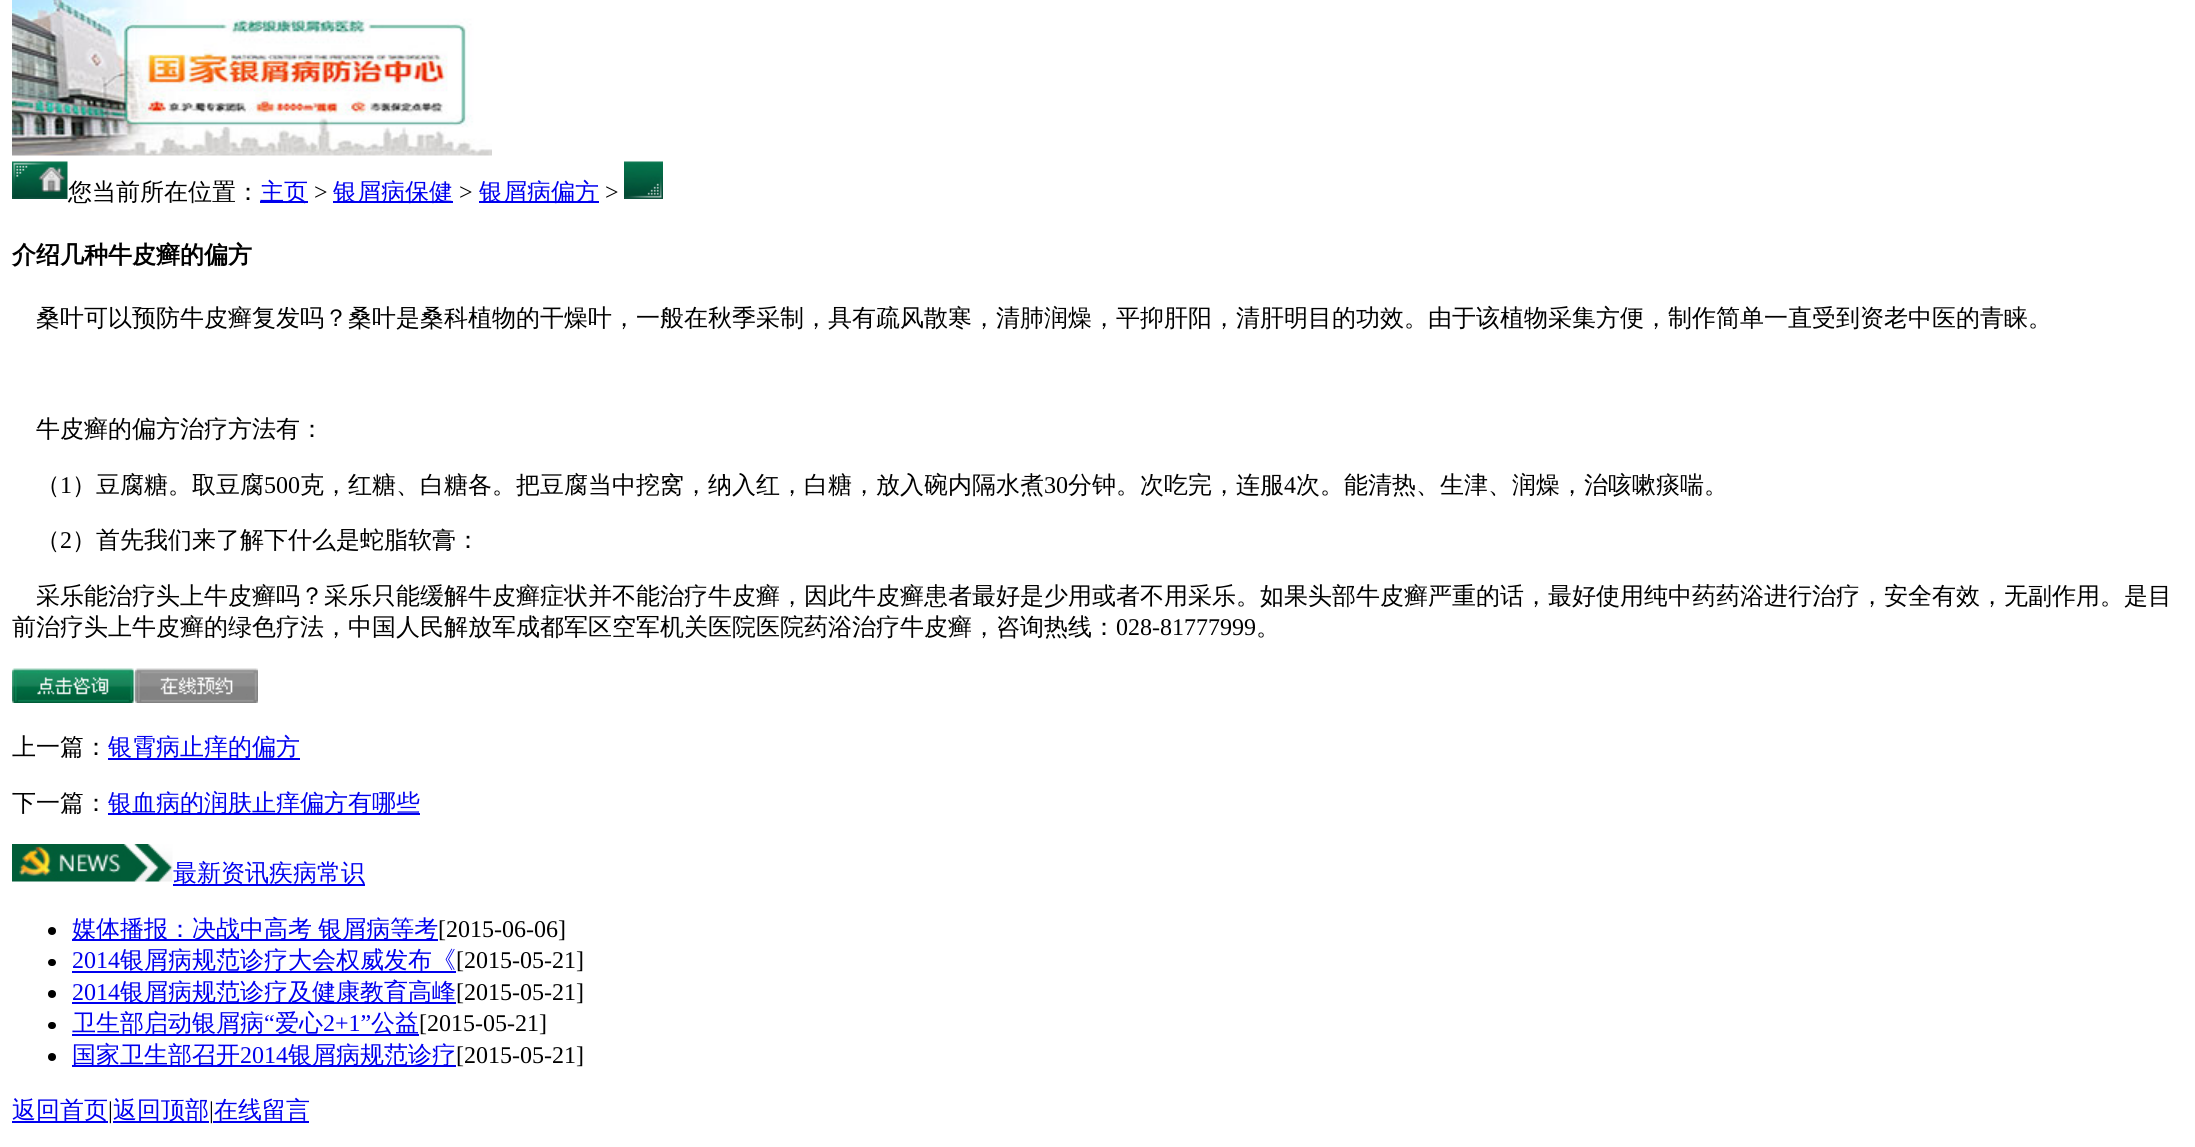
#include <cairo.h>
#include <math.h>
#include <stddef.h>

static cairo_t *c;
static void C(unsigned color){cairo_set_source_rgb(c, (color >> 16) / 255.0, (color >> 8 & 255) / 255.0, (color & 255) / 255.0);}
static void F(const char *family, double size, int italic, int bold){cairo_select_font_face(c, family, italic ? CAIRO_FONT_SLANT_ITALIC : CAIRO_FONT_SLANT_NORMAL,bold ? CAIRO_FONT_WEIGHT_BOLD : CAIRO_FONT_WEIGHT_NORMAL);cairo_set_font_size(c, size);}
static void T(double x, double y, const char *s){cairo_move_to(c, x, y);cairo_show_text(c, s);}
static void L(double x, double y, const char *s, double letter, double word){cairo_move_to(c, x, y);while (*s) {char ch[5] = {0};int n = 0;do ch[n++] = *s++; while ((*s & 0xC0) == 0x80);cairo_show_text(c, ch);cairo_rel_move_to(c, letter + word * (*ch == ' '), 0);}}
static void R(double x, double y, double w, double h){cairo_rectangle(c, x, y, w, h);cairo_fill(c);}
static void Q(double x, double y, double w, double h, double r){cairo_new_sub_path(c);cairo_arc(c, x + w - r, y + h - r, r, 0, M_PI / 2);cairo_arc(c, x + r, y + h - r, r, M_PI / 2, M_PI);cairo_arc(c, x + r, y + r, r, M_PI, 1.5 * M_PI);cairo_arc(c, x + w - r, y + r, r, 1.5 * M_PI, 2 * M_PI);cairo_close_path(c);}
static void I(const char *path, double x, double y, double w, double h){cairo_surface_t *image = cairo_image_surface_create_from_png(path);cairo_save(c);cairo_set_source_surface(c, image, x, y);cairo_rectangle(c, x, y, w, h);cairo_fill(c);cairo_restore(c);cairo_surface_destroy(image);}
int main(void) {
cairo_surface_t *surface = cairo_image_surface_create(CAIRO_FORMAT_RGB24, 2195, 1147);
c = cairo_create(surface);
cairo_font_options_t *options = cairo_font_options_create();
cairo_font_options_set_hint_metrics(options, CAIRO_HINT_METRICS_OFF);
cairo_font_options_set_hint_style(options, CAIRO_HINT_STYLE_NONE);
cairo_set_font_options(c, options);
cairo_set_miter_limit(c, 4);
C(0xffffff);
cairo_paint(c);
I("1.png",12,0,480,156);
I("2.png",12,161,56,38);
F("WenQuanYi Zen Hei Medium",24,0,0);
C(0x000000);
T(68,200,"您当前所在位置：");
C(0x0000ee);
R(260,201,48,2);
T(260,200,"主页");
F("Liberation Serif",24,0,0);
C(0x000000);
T(314,200,">");
C(0x0000ee);
R(333,201,120,2);
F("WenQuanYi Zen Hei Medium",24,0,0);
T(333,200,"银屑病保健");
F("Liberation Serif",24,0,0);
C(0x000000);
T(459,200,">");
C(0x0000ee);
R(479,201,120,2);
F("WenQuanYi Zen Hei Medium",24,0,0);
T(479,200,"银屑病偏方");
F("Liberation Serif",24,0,0);
C(0x000000);
T(605,200,">");
I("3.png",624,161,39,38);
F("WenQuanYi Zen Hei",24,0,1);
T(12,263,"介绍几种牛皮癣的偏方");
F("WenQuanYi Zen Hei Medium",24,0,0);
T(36,326,"桑叶可以预防牛皮癣复发吗？桑叶是桑科植物的干燥叶，一般在秋季采制，具有疏风散寒，清肺润燥，平抑肝阳，清肝明目的功效。由于该植物采集方便，制作简单一直受到资老中医的青睐。");
T(36,437,"牛皮癣的偏方治疗方法有：");
T(36,493,"（");
F("Liberation Serif",24,0,0);
T(60,493,"1");
F("WenQuanYi Zen Hei Medium",24,0,0);
T(72,493,"）豆腐糖。取豆腐");
F("Liberation Serif",24,0,0);
T(264,493,"500");
F("WenQuanYi Zen Hei Medium",24,0,0);
T(300,493,"克，红糖、白糖各。把豆腐当中挖窝，纳入红，白糖，放入碗内隔水煮");
F("Liberation Serif",24,0,0);
T(1044,493,"30");
F("WenQuanYi Zen Hei Medium",24,0,0);
T(1068,493,"分钟。次吃完，连服");
F("Liberation Serif",24,0,0);
T(1284,493,"4");
F("WenQuanYi Zen Hei Medium",24,0,0);
T(1296,493,"次。能清热、生津、润燥，治咳嗽痰喘。");
T(36,548,"（");
F("Liberation Serif",24,0,0);
T(60,548,"2");
F("WenQuanYi Zen Hei Medium",24,0,0);
T(72,548,"）首先我们来了解下什么是蛇脂软膏：");
T(36,604,"采乐能治疗头上牛皮癣吗？采乐只能缓解牛皮癣症状并不能治疗牛皮癣，因此牛皮癣患者最好是少用或者不用采乐。如果头部牛皮癣严重的话，最好使用纯中药药浴进行治疗，安全有效，无副作用。是目");
T(12,635,"前治疗头上牛皮癣的绿色疗法，中国人民解放军成都军区空军机关医院医院药浴治疗牛皮癣，咨询热线：");
F("Liberation Serif",24,0,0);
T(1116,635,"028-81777999");
F("WenQuanYi Zen Hei Medium",24,0,0);
T(1256,635,"。");
I("4.png",12,668,123,35);
I("5.png",135,668,123,35);
T(12,755,"上一篇：");
C(0x0000ee);
R(108,758,192,2);
T(108,755,"银霄病止痒的偏方");
C(0x000000);
T(12,811,"下一篇：");
C(0x0000ee);
R(108,813,312,2);
T(108,811,"银血病的润肤止痒偏方有哪些");
I("6.png",12,844,161,38);
R(173,884,192,2);
T(173,881,"最新资讯疾病常识");
C(0x000000);
cairo_new_path(c);
cairo_arc(c,52,931,4,0,2 * M_PI);
cairo_fill(c);
C(0x0000ee);
R(72,939,366,2);
L(72,937,"媒体播报：决战中高考 银屑病等考",0,-1);
F("Liberation Serif",24,0,0);
C(0x000000);
T(438,937,"[2015-06-06]");
Q(48,959,8,7,3.5);
cairo_fill(c);
C(0x0000ee);
T(72,968,"2014");
R(72,971,384,2);
F("WenQuanYi Zen Hei Medium",24,0,0);
T(120,968,"银屑病规范诊疗大会权威发布《");
F("Liberation Serif",24,0,0);
C(0x000000);
T(456,968,"[2015-05-21]");
cairo_new_path(c);
cairo_arc(c,52,994,4,0,2 * M_PI);
cairo_fill(c);
C(0x0000ee);
T(72,1000,"2014");
R(72,1002,384,2);
F("WenQuanYi Zen Hei Medium",24,0,0);
T(120,1000,"银屑病规范诊疗及健康教育高峰");
F("Liberation Serif",24,0,0);
C(0x000000);
T(456,1000,"[2015-05-21]");
Q(48,1022,8,7,3.5);
cairo_fill(c);
C(0x0000ee);
R(72,1034,347,2);
F("WenQuanYi Zen Hei Medium",24,0,0);
T(72,1031,"卫生部启动银屑病");
F("Liberation Serif",24,0,0);
T(264,1031,"“");
F("WenQuanYi Zen Hei Medium",24,0,0);
T(275,1031,"爱心");
F("Liberation Serif",24,0,0);
T(323,1031,"2+1”");
F("WenQuanYi Zen Hei Medium",24,0,0);
T(371,1031,"公益");
F("Liberation Serif",24,0,0);
C(0x000000);
T(419,1031,"[2015-05-21]");
cairo_new_path(c);
cairo_arc(c,52,1057,4,0,2 * M_PI);
cairo_fill(c);
C(0x0000ee);
R(72,1065,384,2);
F("WenQuanYi Zen Hei Medium",24,0,0);
T(72,1063,"国家卫生部召开");
F("Liberation Serif",24,0,0);
T(240,1063,"2014");
F("WenQuanYi Zen Hei Medium",24,0,0);
T(288,1063,"银屑病规范诊疗");
F("Liberation Serif",24,0,0);
C(0x000000);
T(456,1063,"[2015-05-21]");
C(0x0000ee);
R(12,1121,96,2);
F("WenQuanYi Zen Hei Medium",24,0,0);
T(12,1118,"返回首页");
F("Liberation Serif",24,0,0);
C(0x000000);
T(108,1118,"|");
C(0x0000ee);
R(113,1121,96,2);
F("WenQuanYi Zen Hei Medium",24,0,0);
T(113,1118,"返回顶部");
F("Liberation Serif",24,0,0);
C(0x000000);
T(209,1118,"|");
F("WenQuanYi Zen Hei Medium",24,0,0);
C(0x0000ee);
T(214,1118,"在线留言");
R(213,1121,96,2);
cairo_surface_write_to_png(surface, "o.png");
cairo_font_options_destroy(options);
cairo_destroy(c);
cairo_surface_destroy(surface);
return 0;
}
